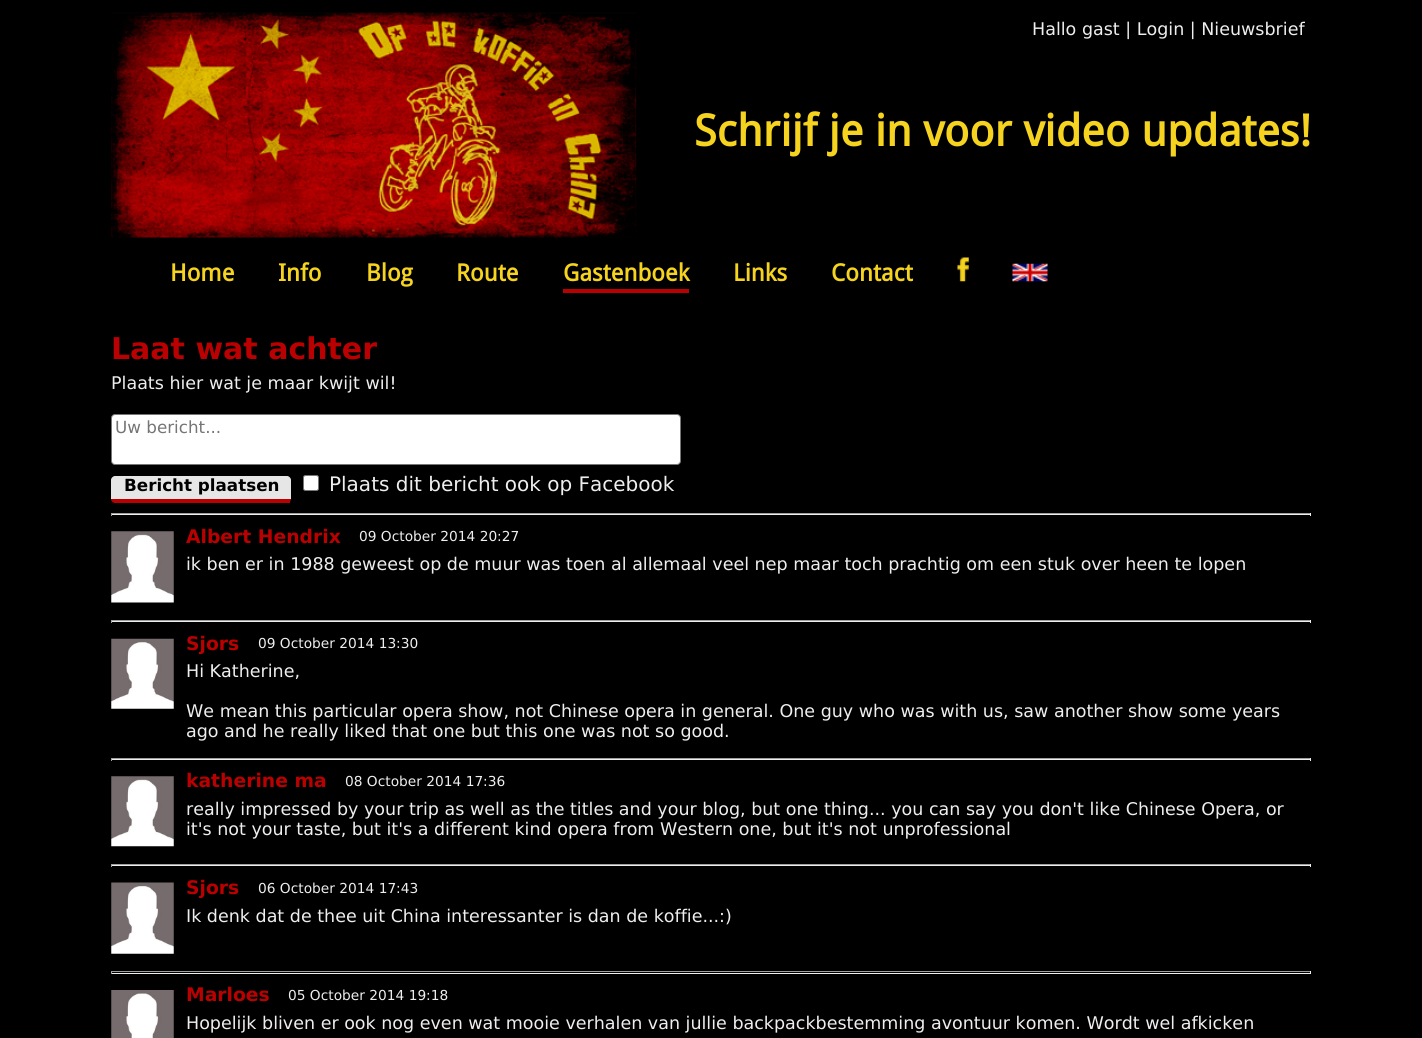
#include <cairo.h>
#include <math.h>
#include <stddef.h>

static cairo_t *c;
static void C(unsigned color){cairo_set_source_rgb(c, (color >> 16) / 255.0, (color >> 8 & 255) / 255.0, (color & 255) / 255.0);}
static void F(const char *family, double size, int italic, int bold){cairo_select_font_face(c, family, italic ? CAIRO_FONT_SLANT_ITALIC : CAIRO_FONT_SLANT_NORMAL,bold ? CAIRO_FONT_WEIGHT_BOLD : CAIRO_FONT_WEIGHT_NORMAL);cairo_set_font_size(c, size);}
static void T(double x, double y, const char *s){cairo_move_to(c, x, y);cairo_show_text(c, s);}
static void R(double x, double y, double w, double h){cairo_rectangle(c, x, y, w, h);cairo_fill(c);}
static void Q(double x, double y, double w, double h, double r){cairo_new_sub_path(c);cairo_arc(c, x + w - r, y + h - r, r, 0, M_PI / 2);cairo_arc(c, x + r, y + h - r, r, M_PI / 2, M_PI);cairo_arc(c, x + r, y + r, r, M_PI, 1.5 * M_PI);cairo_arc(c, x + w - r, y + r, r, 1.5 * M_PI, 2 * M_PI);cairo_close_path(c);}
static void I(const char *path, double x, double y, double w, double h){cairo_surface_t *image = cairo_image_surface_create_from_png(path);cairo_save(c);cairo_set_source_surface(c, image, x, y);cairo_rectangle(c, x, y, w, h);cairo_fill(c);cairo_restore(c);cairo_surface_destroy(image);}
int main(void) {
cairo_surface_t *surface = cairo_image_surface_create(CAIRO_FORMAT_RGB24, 1422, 1038);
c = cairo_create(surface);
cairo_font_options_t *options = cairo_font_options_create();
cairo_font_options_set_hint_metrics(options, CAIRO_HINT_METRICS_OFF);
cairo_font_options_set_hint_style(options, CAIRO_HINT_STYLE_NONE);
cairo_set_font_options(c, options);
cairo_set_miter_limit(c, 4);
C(0x000000);
cairo_paint(c);
I("1.png",111,12,526,226);
F("DejaVu Sans",17.5,0,0);
C(0xeeeeee);
T(1032,35,"Hallo gast | Login | Nieuwsbrief");
F("Droid Sans",43.75,0,1);
C(0xf5d31e);
T(694,146,"Schrijf je in voor video updates!");
F("Droid Sans",23.75,0,1);
T(170,281,"Home");
T(278,281,"Info");
T(366,281,"Blog");
T(456,281,"Route");
T(563,281,"Gastenboek");
C(0xbb0001);
R(563,289,126,4);
C(0xf5d31e);
T(733,281,"Links");
T(831,281,"Contact");
I("2.png",957,257,12,25);
I("3.png",1012,263,36,19);
F("DejaVu Sans",30,0,1);
C(0xbb0001);
T(111,359,"Laat wat achter");
F("DejaVu Sans",17.5,0,0);
C(0xeeeeee);
T(111,389,"Plaats hier wat je maar kwijt wil!");
C(0xffffff);
Q(111.5,414.5,569,50,3.5);
cairo_fill_preserve(c);
C(0x767676);
cairo_set_line_width(c,1);
cairo_stroke(c);
F("DejaVu Sans",16.75,0,0);
C(0x757575);
T(115,433,"Uw bericht...");
C(0xe6e6e6);
cairo_new_path(c);
cairo_move_to(c,115,476);
cairo_line_to(c,287,476);
cairo_curve_to(c,289,476,291,478,291,480);
cairo_line_to(c,291,499);
cairo_line_to(c,111,499);
cairo_line_to(c,111,480);
cairo_curve_to(c,111,478,113,476,115,476);
cairo_close_path(c);
cairo_fill(c);
C(0xbb0001);
cairo_new_path(c);
cairo_move_to(c,111,499);
cairo_line_to(c,291,499);
cairo_curve_to(c,291,501,289,503,287,503);
cairo_line_to(c,115,503);
cairo_curve_to(c,113,503,111,501,111,499);
cairo_close_path(c);
cairo_fill(c);
R(114,501,176,2);
F("DejaVu Sans",16.75,0,1);
C(0x000000);
T(124,491,"Bericht plaatsen");
C(0xffffff);
Q(303.5,475.5,15,15,2);
cairo_fill_preserve(c);
C(0x767676);
cairo_stroke(c);
F("DejaVu Sans",20,0,0);
C(0xeeeeee);
T(329,491,"Plaats dit bericht ook op Facebook");
C(0x9f9f9f);
R(111,513,1200,1);
C(0xeeeeee);
R(1310,513,1,3);
R(111,514,1200,1);
C(0x9f9f9f);
R(111,513,1,3);
I("4.png",111,531,63,72);
F("DejaVu Sans",18.75,0,1);
C(0xbb0001);
T(186,543,"Albert Hendrix");
F("DejaVu Sans",13.75,0,0);
C(0xeeeeee);
T(359,541,"09 October 2014 20:27");
F("DejaVu Sans",17.5,0,0);
T(186,570,"ik ben er in 1988 geweest op de muur was toen al allemaal veel nep maar toch prachtig om een stuk over heen te lopen");
C(0x9f9f9f);
R(111,620,1200,1);
C(0xeeeeee);
R(1310,620,1,3);
R(111,621,1200,1);
C(0x9f9f9f);
R(111,620,1,3);
I("5.png",111,638,63,71);
F("DejaVu Sans",18.75,0,1);
C(0xbb0001);
T(186,650,"Sjors");
F("DejaVu Sans",13.75,0,0);
C(0xeeeeee);
T(258,648,"09 October 2014 13:30");
F("DejaVu Sans",17.5,0,0);
T(186,677,"Hi Katherine,");
T(186,717,"We mean this particular opera show, not Chinese opera in general. One guy who was with us, saw another show some years");
T(186,737,"ago and he really liked that one but this one was not so good.");
C(0x9f9f9f);
R(111,758,1200,1);
C(0xeeeeee);
R(1310,758,1,3);
R(111,759,1200,1);
C(0x9f9f9f);
R(111,758,1,3);
I("6.png",111,776,63,71);
F("DejaVu Sans",18.75,0,1);
C(0xbb0001);
T(186,787,"katherine ma");
F("DejaVu Sans",13.75,0,0);
C(0xeeeeee);
T(345,786,"08 October 2014 17:36");
F("DejaVu Sans",17.5,0,0);
T(186,815,"really impressed by your trip as well as the titles and your blog, but one thing... you can say you don't like Chinese Opera, or");
T(186,835,"it's not your taste, but it's a different kind opera from Western one, but it's not unprofessional");
C(0x9f9f9f);
R(111,864,1200,1);
C(0xeeeeee);
R(1310,864,1,3);
R(111,865,1200,1);
C(0x9f9f9f);
R(111,864,1,3);
I("7.png",111,882,63,72);
F("DejaVu Sans",18.75,0,1);
C(0xbb0001);
T(186,894,"Sjors");
F("DejaVu Sans",13.75,0,0);
C(0xeeeeee);
T(258,893,"06 October 2014 17:43");
F("DejaVu Sans",17.5,0,0);
T(186,922,"Ik denk dat de thee uit China interessanter is dan de koffie...:)");
C(0x9f9f9f);
R(111,971,1200,1);
C(0xeeeeee);
R(1310,971,1,3);
R(111,973,1200,1);
C(0x9f9f9f);
R(111,971,1,3);
I("8.png",111,990,63,48);
F("DejaVu Sans",18.75,0,1);
C(0xbb0001);
T(186,1001,"Marloes");
F("DejaVu Sans",13.75,0,0);
C(0xeeeeee);
T(288,1000,"05 October 2014 19:18");
F("DejaVu Sans",17.5,0,0);
T(186,1029,"Hopelijk bliven er ook nog even wat mooie verhalen van jullie backpackbestemming avontuur komen. Wordt wel afkicken");
cairo_surface_write_to_png(surface, "o.png");
cairo_font_options_destroy(options);
cairo_destroy(c);
cairo_surface_destroy(surface);
return 0;
}
